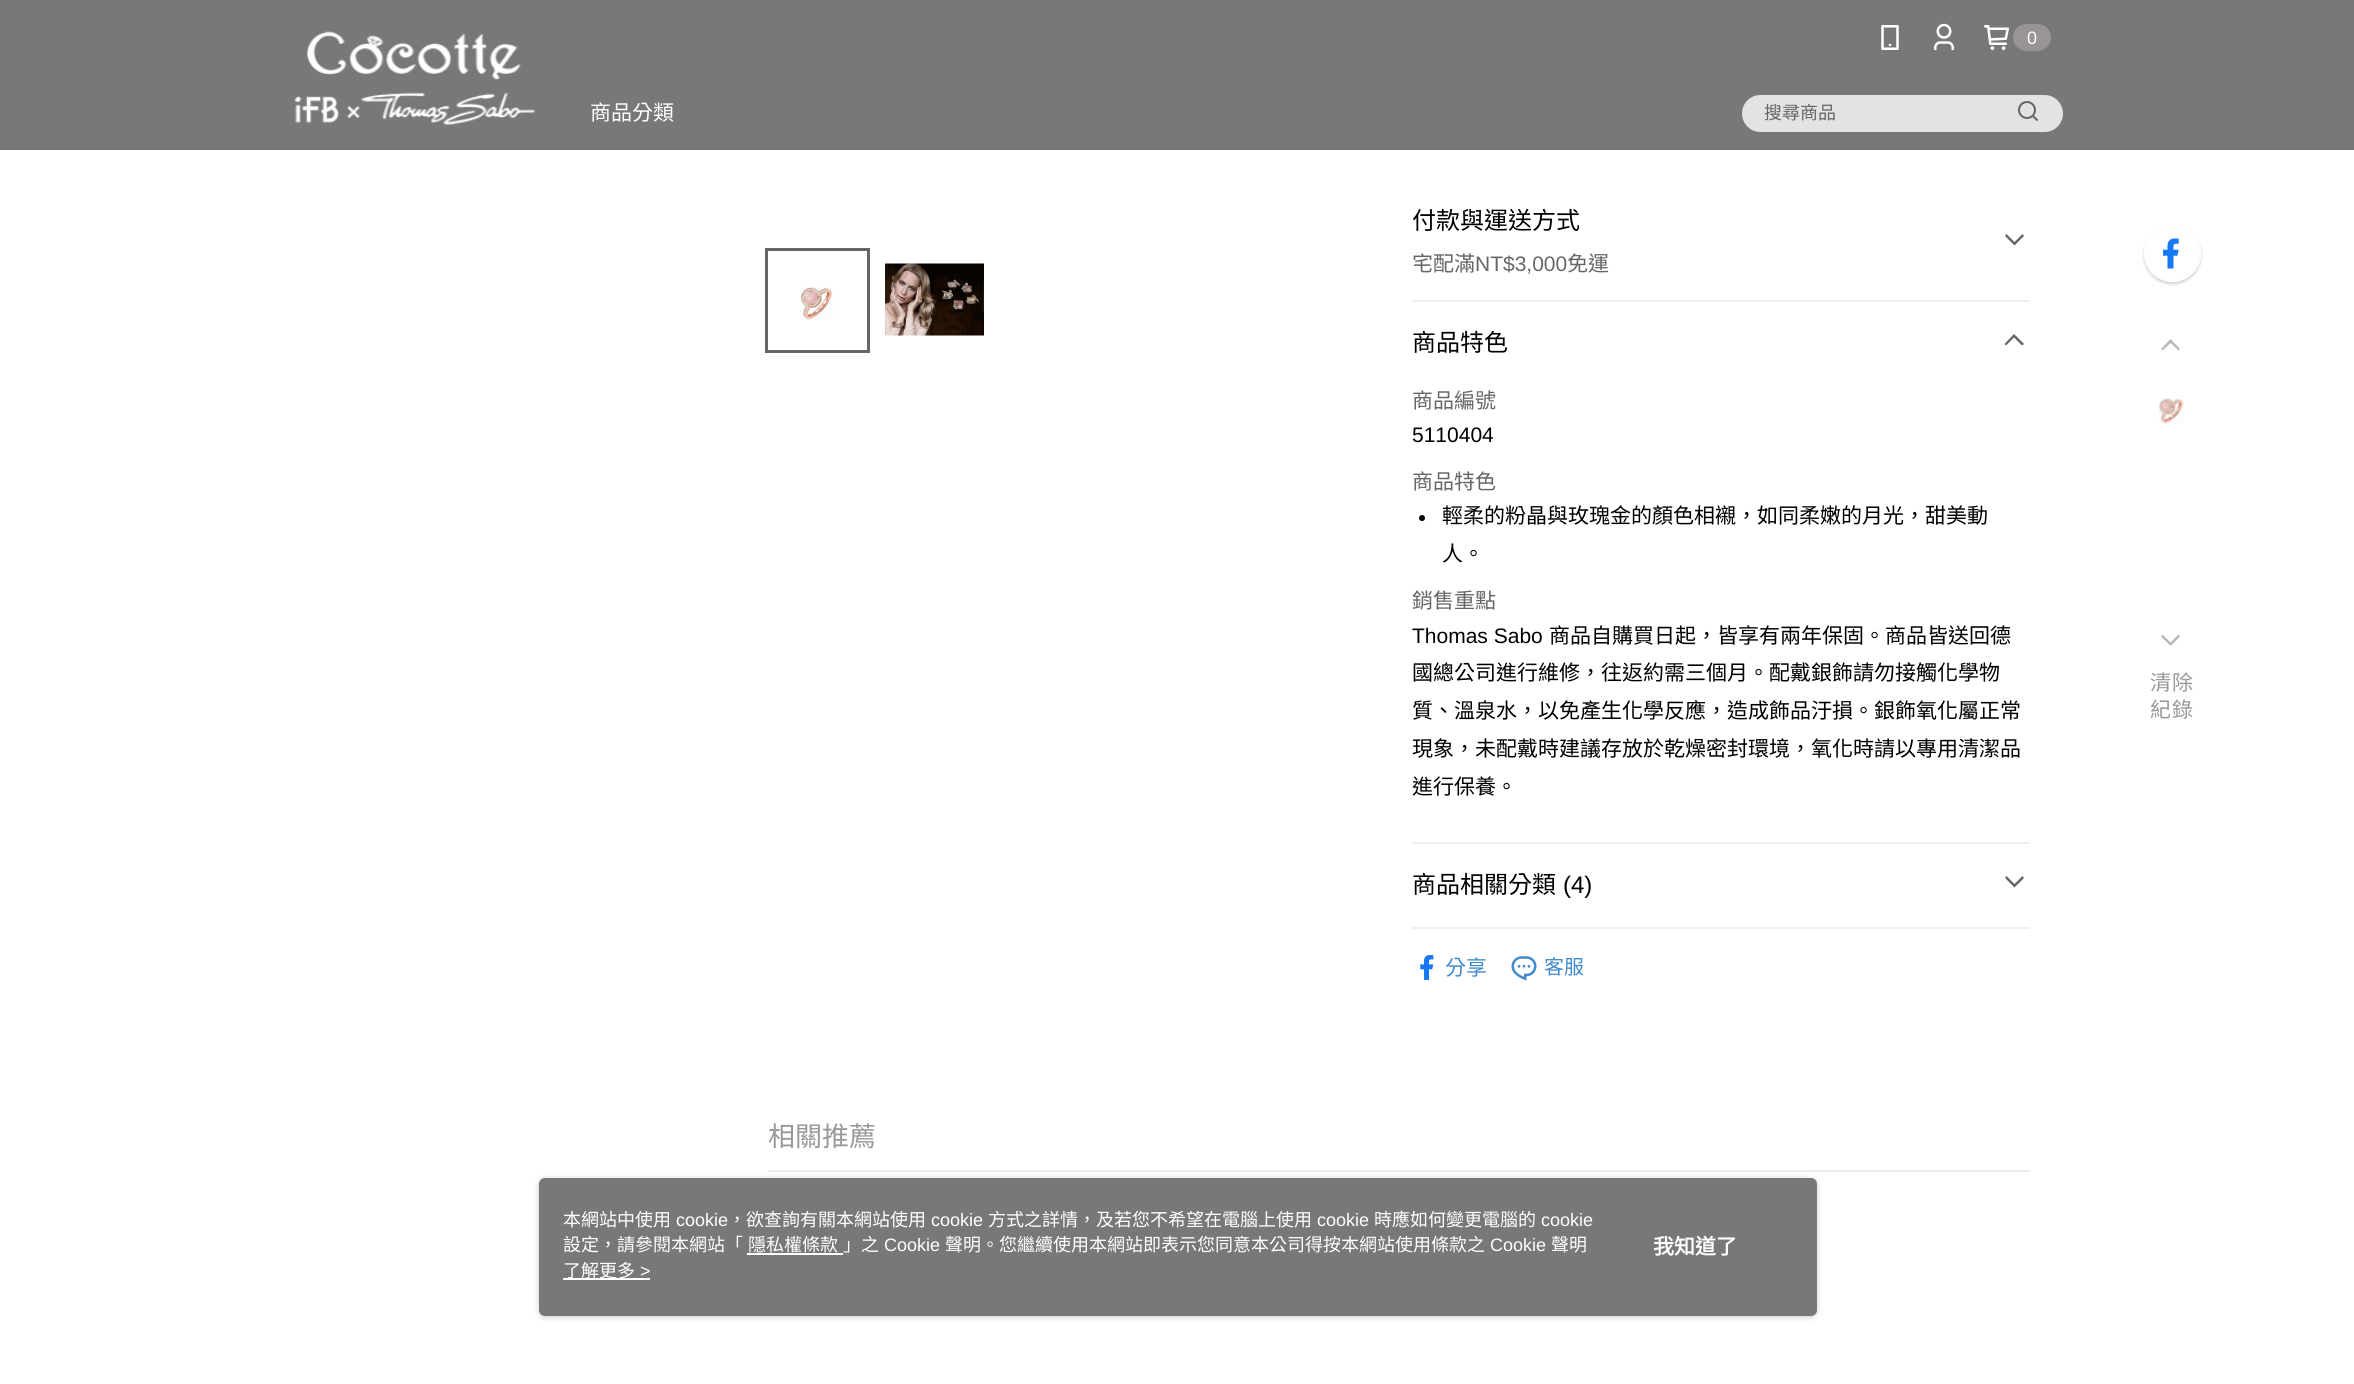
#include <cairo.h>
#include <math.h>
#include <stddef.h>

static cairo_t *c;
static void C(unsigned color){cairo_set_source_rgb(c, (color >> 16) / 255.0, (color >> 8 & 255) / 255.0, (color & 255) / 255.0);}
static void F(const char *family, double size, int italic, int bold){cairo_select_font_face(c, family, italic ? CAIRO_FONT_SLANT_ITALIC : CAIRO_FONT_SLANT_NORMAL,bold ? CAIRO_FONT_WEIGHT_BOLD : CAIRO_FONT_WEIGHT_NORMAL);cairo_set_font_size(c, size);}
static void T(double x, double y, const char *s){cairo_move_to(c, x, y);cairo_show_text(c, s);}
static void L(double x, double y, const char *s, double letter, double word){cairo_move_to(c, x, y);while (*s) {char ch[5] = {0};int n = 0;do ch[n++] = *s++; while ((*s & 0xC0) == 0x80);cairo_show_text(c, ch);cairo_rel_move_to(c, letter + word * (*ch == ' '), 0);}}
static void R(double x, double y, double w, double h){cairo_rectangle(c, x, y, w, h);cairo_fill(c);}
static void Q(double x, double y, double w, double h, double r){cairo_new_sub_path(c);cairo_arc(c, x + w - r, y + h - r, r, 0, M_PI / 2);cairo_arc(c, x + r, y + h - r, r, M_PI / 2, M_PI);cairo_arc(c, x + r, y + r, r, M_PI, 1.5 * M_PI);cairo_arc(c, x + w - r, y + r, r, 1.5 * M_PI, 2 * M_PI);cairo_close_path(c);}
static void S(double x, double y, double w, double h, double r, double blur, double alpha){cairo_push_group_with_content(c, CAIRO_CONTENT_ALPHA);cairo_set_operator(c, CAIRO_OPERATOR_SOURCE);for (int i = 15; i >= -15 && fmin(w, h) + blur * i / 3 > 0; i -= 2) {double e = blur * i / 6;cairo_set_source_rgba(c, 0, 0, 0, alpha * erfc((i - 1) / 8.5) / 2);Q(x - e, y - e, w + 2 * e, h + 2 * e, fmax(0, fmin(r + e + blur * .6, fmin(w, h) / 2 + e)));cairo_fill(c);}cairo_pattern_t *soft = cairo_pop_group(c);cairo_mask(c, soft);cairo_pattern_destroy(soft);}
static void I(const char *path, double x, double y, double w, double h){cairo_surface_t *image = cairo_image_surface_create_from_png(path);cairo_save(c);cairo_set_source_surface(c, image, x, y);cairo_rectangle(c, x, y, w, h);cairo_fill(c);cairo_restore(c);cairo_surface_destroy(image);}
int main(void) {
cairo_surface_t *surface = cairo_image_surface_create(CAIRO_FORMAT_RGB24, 2354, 1384);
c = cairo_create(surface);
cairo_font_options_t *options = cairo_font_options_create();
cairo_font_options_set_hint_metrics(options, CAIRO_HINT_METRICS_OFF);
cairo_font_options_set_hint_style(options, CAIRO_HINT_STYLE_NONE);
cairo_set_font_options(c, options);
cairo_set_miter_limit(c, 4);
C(0xffffff);
cairo_paint(c);
C(0x797878);
R(0,0,2354,150);
I("1.png",294,31,242,94);
I("2.png",1881,25,18,25);
I("3.png",1934,23,20,27);
I("4.png",1984,25,25,25);
C(0x999595);
Q(2013,24,38,27,13.5);
cairo_fill(c);
F("Liberation Sans",18,0,0);
C(0xffffff);
T(2027,44,"0");
F("Noto Sans CJK TC",21,0,0);
T(590,120,"商品分類");
C(0xe4e2e2);
Q(1742,95,321,37,18.5);
cairo_fill(c);
F("Noto Sans CJK TC",18,0,0);
C(0x666666);
T(1764,119,"搜尋商品");
I("5.png",2018,101,21,21);
I("6.png",800,287,33,33);
cairo_rectangle(c,766.5,249.5,102,102);
cairo_set_line_width(c,3);
cairo_stroke(c);
I("7.png",885,263,99,73);
C(0xeceff1);
R(1412,300,618,2);
F("Noto Sans CJK TC",24,0,0);
C(0x000000);
T(1412,229,"付款與運送方式");
F("Noto Sans CJK TC",21,0,0);
C(0x666666);
T(1412,271,"宅配滿");
F("Liberation Sans",21,0,0);
T(1475,271,"NT$3,000");
F("Noto Sans CJK TC",21,0,0);
T(1567,271,"免運");
cairo_new_path(c);
cairo_move_to(c,2006.5,234);
cairo_line_to(c,2005,236);
cairo_line_to(c,2014.5,245.5);
cairo_line_to(c,2024,236);
cairo_line_to(c,2022.5,234);
cairo_line_to(c,2014.5,242);
cairo_close_path(c);
cairo_fill(c);
C(0xeceff1);
R(1412,842,618,2);
F("Noto Sans CJK TC",24,0,0);
C(0x000000);
T(1412,351,"商品特色");
C(0x666666);
cairo_new_path(c);
cairo_move_to(c,2022,345.5);
cairo_line_to(c,2024,344);
cairo_line_to(c,2014,334);
cairo_line_to(c,2004.5,344);
cairo_line_to(c,2006,345.5);
cairo_line_to(c,2014,337.5);
cairo_close_path(c);
cairo_fill(c);
F("Noto Sans CJK TC",21,0,0);
T(1412,408,"商品編號");
F("Liberation Sans",21,0,0);
C(0x000000);
T(1412,442,"5110404");
F("Noto Sans CJK TC",21,0,0);
C(0x666666);
T(1412,489,"商品特色");
C(0x000000);
cairo_new_path(c);
cairo_arc(c,1422,518,3,0,2 * M_PI);
cairo_fill(c);
T(1442,523,"輕柔的粉晶與玫瑰金的顏色相襯，如同柔嫩的月光，甜美動");
T(1442,561,"人。");
C(0x666666);
T(1412,608,"銷售重點");
F("Liberation Sans",21,0,0);
C(0x000000);
T(1412,643,"Thomas Sabo");
F("Noto Sans CJK TC",21,0,0);
T(1549,643,"商品自購買日起，皆享有兩年保固。商品皆送回德");
T(1412,680,"國總公司進行維修，往返約需三個月。配戴銀飾請勿接觸化學物");
T(1412,718,"質、溫泉水，以免產生化學反應，造成飾品汙損。銀飾氧化屬正常");
T(1412,756,"現象，未配戴時建議存放於乾燥密封環境，氧化時請以專用清潔品");
T(1412,794,"進行保養。");
C(0xeceff1);
R(1412,927,618,2);
F("Noto Sans CJK TC",24,0,0);
C(0x000000);
T(1412,893,"商品相關分類");
F("Liberation Sans",24,0,0);
T(1563,893,"(4)");
C(0x666666);
cairo_new_path(c);
cairo_move_to(c,2006.5,876);
cairo_line_to(c,2005,878);
cairo_line_to(c,2014.5,887.5);
cairo_line_to(c,2024,878);
cairo_line_to(c,2022.5,876);
cairo_line_to(c,2014.5,884);
cairo_close_path(c);
cairo_fill(c);
I("8.png",1420,955,14,25);
F("Noto Sans CJK TC",21,0,0);
C(0x428bca);
T(1445,975,"分享");
I("9.png",1511,956,26,25);
F("Noto Sans CJK TC",20,0,0);
T(1544,974,"客服");
C(0xececec);
R(768,1170,1262,2);
F("Noto Sans CJK TC",27,0,0);
C(0x999999);
T(768,1146,"相關推薦");
cairo_save(c);
cairo_set_fill_rule(c,CAIRO_FILL_RULE_EVEN_ODD);
cairo_new_path(c);
cairo_move_to(c,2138,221);
cairo_line_to(c,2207,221);
cairo_line_to(c,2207,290);
cairo_line_to(c,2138,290);
cairo_close_path(c);
cairo_move_to(c,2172.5,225);
cairo_curve_to(c,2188,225,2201,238,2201,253.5);
cairo_curve_to(c,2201,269,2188,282,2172.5,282);
cairo_curve_to(c,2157,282,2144,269,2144,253.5);
cairo_curve_to(c,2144,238,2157,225,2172.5,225);
cairo_close_path(c);
cairo_clip(c);
C(0x000000);
S(2144,227,57,57,28.5,1.5,.2);
cairo_restore(c);
cairo_set_source_rgba(c,1,1,1,0.9);
cairo_arc(c,2172.5,253.5,27.5,0,2 * M_PI);
cairo_fill_preserve(c);
C(0xfdfdfd);
cairo_set_line_width(c,2);
cairo_stroke(c);
I("10.png",2163,238,16,31);
C(0xb7b8be);
cairo_new_path(c);
cairo_move_to(c,2178.5,350.5);
cairo_line_to(c,2180,349);
cairo_line_to(c,2170.5,339);
cairo_line_to(c,2161,349);
cairo_line_to(c,2162.5,350.5);
cairo_line_to(c,2170.5,343);
cairo_close_path(c);
cairo_fill(c);
I("11.png",2159,398,25,26);
cairo_new_path(c);
cairo_move_to(c,2162.5,634.5);
cairo_line_to(c,2161,636.5);
cairo_line_to(c,2170.5,646);
cairo_line_to(c,2180,636.5);
cairo_line_to(c,2178.5,634.5);
cairo_line_to(c,2170.5,642.5);
cairo_close_path(c);
cairo_fill(c);
F("Noto Sans CJK TC",21,0,0);
C(0x999999);
L(2150,690,"清除",1,0);
L(2150,717,"紀錄",1,0);
C(0x979797);
S(539,1179,1278,138,6,3,.5);
C(0x797878);
Q(539,1178,1278,138,6);
cairo_fill(c);
F("Noto Sans CJK TC",18,0,0);
C(0xffffff);
T(563,1226,"本網站中使用");
F("Liberation Sans",18,0,0);
T(676,1226,"cookie");
F("Noto Sans CJK TC",18,0,0);
T(728,1226,"，欲查詢有關本網站使用");
F("Liberation Sans",18,0,0);
T(931,1226,"cookie");
F("Noto Sans CJK TC",18,0,0);
T(988,1226,"方式之詳情，及若您不希望在電腦上使用");
F("Liberation Sans",18,0,0);
T(1317,1226,"cookie");
F("Noto Sans CJK TC",18,0,0);
T(1374,1226,"時應如何變更電腦的");
F("Liberation Sans",18,0,0);
T(1541,1226,"cookie");
F("Noto Sans CJK TC",18,0,0);
T(563,1251,"設定，請參閱本網站「");
T(748,1251,"隱私權條款");
R(747,1253,96,2);
T(843,1251,"」之");
F("Liberation Sans",18,0,0);
T(884,1251,"Cookie");
F("Noto Sans CJK TC",18,0,0);
T(945,1251,"聲明。您繼續使用本網站即表示您同意本公司得按本網站使用條款之");
F("Liberation Sans",18,0,0);
T(1490,1251,"Cookie");
F("Noto Sans CJK TC",18,0,0);
T(1551,1251,"聲明");
R(563,1278,87,2);
T(563,1277,"了解更多");
F("Liberation Sans",18,0,0);
T(640,1277,">");
F("Noto Sans CJK TC",21,0,1);
T(1653,1254,"我知道了");
cairo_surface_write_to_png(surface, "o.png");
cairo_font_options_destroy(options);
cairo_destroy(c);
cairo_surface_destroy(surface);
return 0;
}
